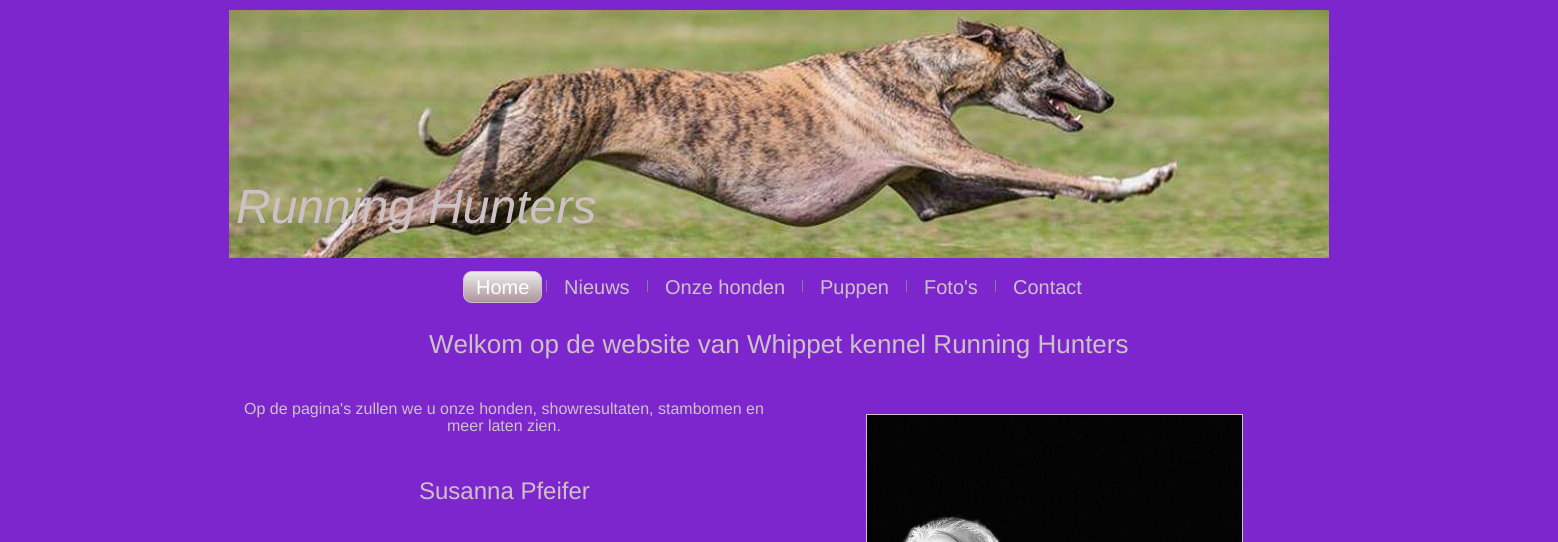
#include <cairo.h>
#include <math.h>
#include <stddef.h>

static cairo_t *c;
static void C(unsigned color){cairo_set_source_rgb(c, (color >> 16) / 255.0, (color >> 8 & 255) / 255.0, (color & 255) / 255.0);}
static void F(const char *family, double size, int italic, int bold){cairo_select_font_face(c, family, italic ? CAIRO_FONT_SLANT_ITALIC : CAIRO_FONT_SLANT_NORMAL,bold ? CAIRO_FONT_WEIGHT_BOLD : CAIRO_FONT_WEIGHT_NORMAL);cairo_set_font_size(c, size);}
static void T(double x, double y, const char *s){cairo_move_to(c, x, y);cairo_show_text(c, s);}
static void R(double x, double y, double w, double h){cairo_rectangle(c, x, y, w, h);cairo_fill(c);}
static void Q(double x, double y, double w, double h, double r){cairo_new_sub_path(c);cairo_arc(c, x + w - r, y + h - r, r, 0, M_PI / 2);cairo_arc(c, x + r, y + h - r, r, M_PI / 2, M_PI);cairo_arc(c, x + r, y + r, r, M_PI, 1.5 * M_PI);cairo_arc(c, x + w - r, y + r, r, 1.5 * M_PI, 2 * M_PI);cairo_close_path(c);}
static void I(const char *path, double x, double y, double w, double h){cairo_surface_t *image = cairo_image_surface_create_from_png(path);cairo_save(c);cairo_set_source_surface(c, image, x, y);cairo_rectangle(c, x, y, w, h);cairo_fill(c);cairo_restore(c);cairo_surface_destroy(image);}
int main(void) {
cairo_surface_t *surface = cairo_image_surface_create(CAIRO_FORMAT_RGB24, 1558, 542);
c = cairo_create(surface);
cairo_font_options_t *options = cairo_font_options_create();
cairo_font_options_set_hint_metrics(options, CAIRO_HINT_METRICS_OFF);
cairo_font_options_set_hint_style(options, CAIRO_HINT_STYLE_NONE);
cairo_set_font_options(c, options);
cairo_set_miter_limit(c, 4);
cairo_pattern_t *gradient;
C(0x7d26cd);
cairo_paint(c);
I("1.png",229,10,1100,248);
F("Liberation Sans",48,1,0);
C(0xcdc1c5);
T(236,223,"Running Hunters");
gradient = cairo_pattern_create_linear(503,271,503,303);
cairo_pattern_add_color_stop_rgba(gradient,0,0.945,0.933,0.937,1);
cairo_pattern_add_color_stop_rgba(gradient,1,0.663,0.576,0.608,1);
cairo_set_source(c,gradient);
cairo_pattern_destroy(gradient);
Q(463.5,271.5,78,31,8.5);
cairo_fill_preserve(c);
C(0xcdc1c5);
cairo_set_line_width(c,1);
cairo_stroke(c);
F("Liberation Sans",20,0,0);
C(0xffffff);
T(476,294,"Home");
C(0x828282);
R(546,280,1,12);
C(0xcdc1c5);
T(564,294,"Nieuws");
C(0x828282);
R(647,280,1,12);
C(0xcdc1c5);
T(665,294,"Onze honden");
C(0x828282);
R(802,280,1,12);
C(0xcdc1c5);
T(820,294,"Puppen");
C(0x828282);
R(906,280,1,12);
C(0xcdc1c5);
T(924,294,"Foto's");
C(0x828282);
R(995,280,1,12);
C(0xcdc1c5);
T(1013,294,"Contact");
F("Liberation Sans",26,0,0);
T(429,353,"Welkom op de website van Whippet kennel Running Hunters");
F("Liberation Sans",16,0,0);
T(244,414,"Op de pagina's zullen we u onze honden, showresultaten, stambomen en");
T(447,431,"meer laten zien.");
F("Liberation Sans",24,0,0);
T(419,499,"Susanna Pfeifer");
cairo_rectangle(c,866.5,414.5,376,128);
cairo_stroke(c);
I("2.png",867,415,375,127);
cairo_surface_write_to_png(surface, "o.png");
cairo_font_options_destroy(options);
cairo_destroy(c);
cairo_surface_destroy(surface);
return 0;
}
